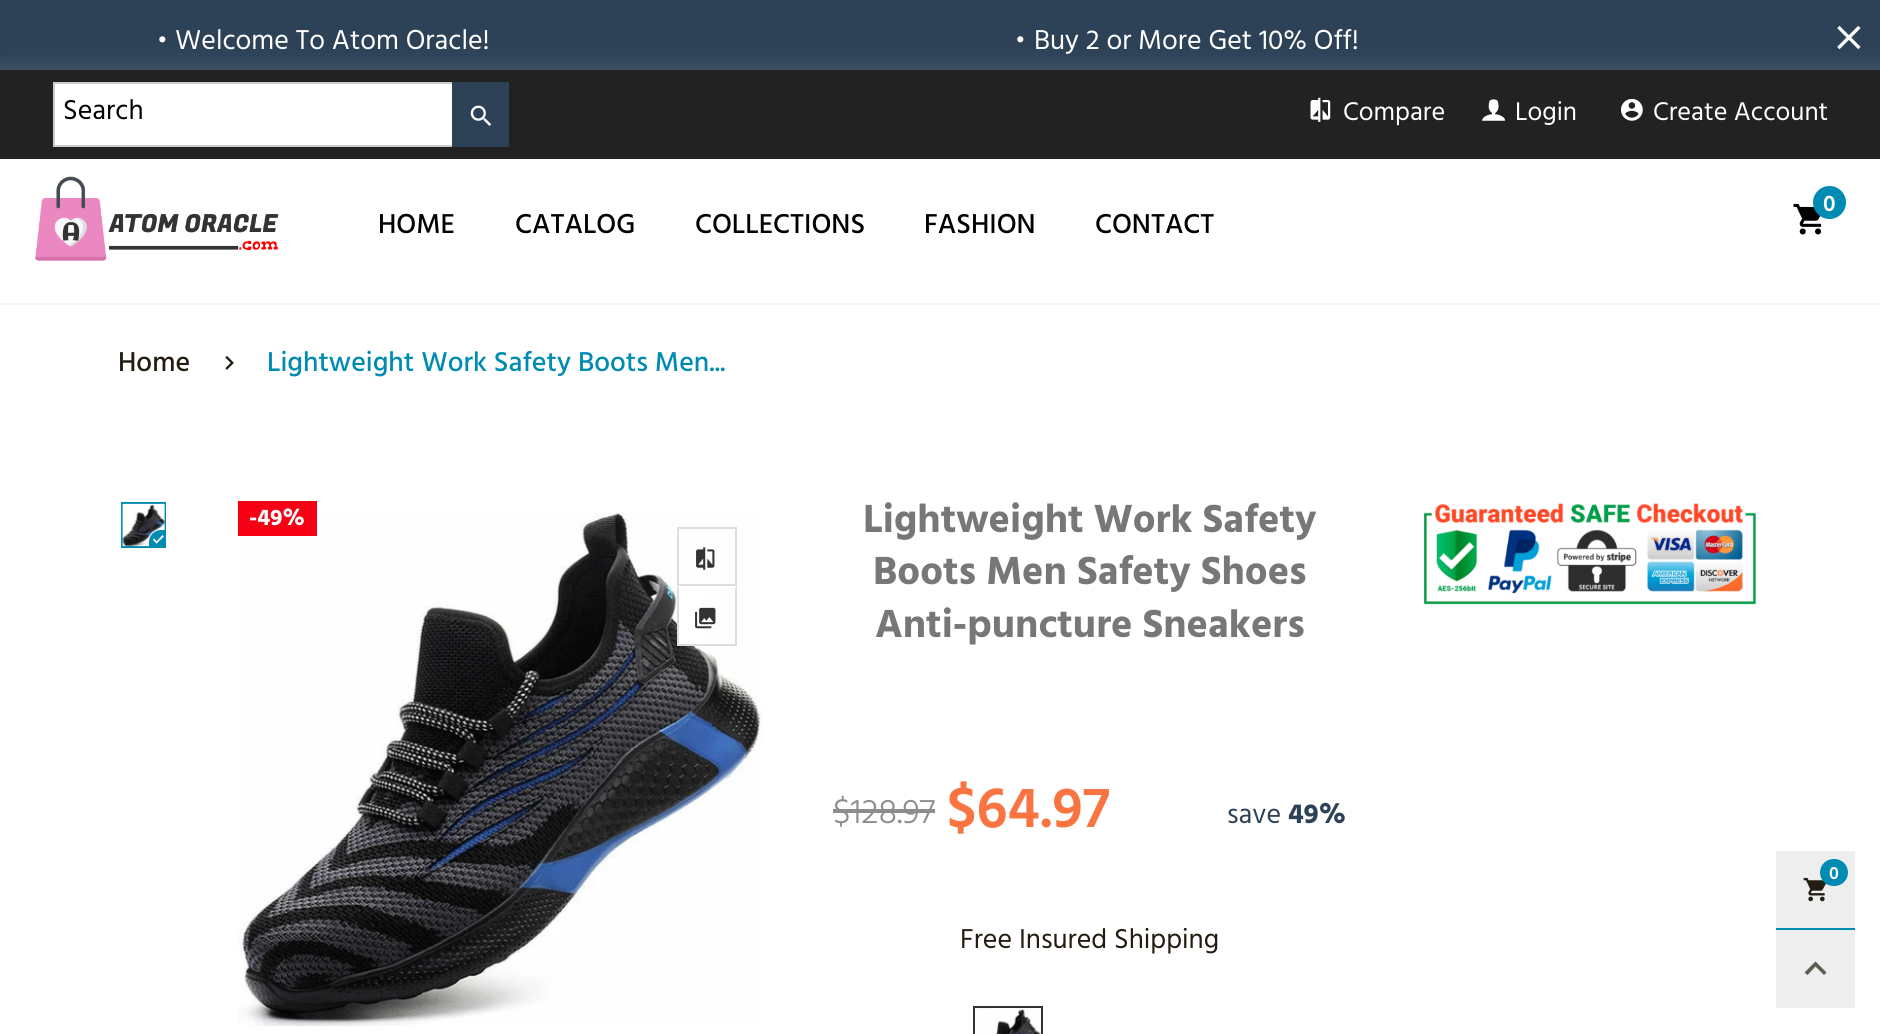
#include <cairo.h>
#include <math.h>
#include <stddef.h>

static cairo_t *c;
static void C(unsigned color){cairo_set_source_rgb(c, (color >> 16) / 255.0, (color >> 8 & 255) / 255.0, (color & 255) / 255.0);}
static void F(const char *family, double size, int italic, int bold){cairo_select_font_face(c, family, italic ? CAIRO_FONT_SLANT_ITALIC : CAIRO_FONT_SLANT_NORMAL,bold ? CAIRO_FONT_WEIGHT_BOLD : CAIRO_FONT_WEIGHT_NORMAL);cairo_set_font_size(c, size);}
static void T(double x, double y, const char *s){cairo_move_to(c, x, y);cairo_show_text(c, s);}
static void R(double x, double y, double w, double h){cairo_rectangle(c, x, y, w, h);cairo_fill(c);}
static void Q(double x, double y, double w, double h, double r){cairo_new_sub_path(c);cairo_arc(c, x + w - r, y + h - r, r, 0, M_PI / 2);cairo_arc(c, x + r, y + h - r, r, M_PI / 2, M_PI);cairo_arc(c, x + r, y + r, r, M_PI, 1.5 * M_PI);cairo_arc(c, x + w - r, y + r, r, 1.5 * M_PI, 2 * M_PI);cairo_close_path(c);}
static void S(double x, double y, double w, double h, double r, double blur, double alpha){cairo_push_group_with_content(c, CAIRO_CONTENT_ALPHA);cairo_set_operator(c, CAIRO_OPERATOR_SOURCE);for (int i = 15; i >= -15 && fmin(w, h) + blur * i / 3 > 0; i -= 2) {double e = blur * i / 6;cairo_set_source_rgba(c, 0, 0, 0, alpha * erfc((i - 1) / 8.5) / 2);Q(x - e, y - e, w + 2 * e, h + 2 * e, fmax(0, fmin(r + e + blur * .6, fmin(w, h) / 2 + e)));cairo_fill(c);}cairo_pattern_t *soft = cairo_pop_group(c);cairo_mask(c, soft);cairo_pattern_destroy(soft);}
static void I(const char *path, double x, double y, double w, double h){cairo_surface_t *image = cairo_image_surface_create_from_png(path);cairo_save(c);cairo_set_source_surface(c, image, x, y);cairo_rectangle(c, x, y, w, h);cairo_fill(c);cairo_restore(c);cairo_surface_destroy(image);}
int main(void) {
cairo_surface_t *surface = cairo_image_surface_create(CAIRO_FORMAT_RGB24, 1880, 1034);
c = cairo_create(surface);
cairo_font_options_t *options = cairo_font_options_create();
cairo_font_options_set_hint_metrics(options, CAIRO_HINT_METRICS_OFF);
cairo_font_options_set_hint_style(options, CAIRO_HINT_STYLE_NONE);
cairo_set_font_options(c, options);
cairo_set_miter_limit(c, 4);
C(0xffffff);
cairo_paint(c);
C(0x2e4257);
R(0,0,1880,70);
F("Hind Guntur",52,0,0);
C(0xffffff);
T(158,42,".");
F("Hind Guntur",28,0,0);
T(175,49,"Welcome To Atom Oracle!");
F("Hind Guntur",52,0,0);
T(1016,42,".");
F("Hind Guntur",28,0,0);
T(1034,49,"Buy 2 or More Get 10% Off!");
I("1.png",1837,25,24,25);
C(0xf5f5f5);
R(0,303,1880,2);
cairo_save(c);
cairo_set_fill_rule(c,CAIRO_FILL_RULE_EVEN_ODD);
cairo_new_path(c);
cairo_move_to(c,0,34);
cairo_line_to(c,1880,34);
cairo_line_to(c,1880,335);
cairo_line_to(c,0,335);
cairo_close_path(c);
cairo_move_to(c,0,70);
cairo_line_to(c,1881,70);
cairo_line_to(c,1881,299);
cairo_line_to(c,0,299);
cairo_close_path(c);
cairo_clip(c);
C(0xffffff);
S(0,70,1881,229,0,11.5,.15);
cairo_restore(c);
C(0x222222);
R(0,70,1880,89);
C(0xffffff);
R(55,84,397,61);
C(0xcccccc);
R(53,82,399,2);
R(53,145,399,2);
R(53,82,2,65);
C(0x000000);
T(63,119,"Search");
C(0x2e4257);
R(452,82,57,65);
I("2.png",470,105,22,21);
I("3.png",1310,97,21,25);
F("Hind Guntur",26.25,0,0);
C(0xffffff);
T(1343,120,"Compare");
I("4.png",1482,99,24,22);
T(1515,120,"Login");
I("5.png",1621,98,22,23);
T(1653,120,"Create Account");
I("6.png",35,176,244,85);
I("7.png",1793,203,29,32);
C(0x008bb3);
cairo_arc(c,1829.5,202.5,16.5,0,2 * M_PI);
cairo_fill(c);
F("Hind Guntur SemiBold",23,0,0);
C(0xffffff);
T(1823,211,"0");
F("Hind Guntur Medium",28,0,0);
C(0x000000);
T(378,233,"HOME");
T(515,233,"CATALOG");
T(695,233,"COLLECTIONS");
T(924,233,"FASHION");
T(1095,233,"CONTACT");
C(0x231c11);
T(118,371,"Home");
I("8.png",225,356,9,14);
C(0x008bb3);
T(267,371,"Lightweight Work Safety Boots Men...");
cairo_rectangle(c,122,503,43,44);
cairo_stroke(c);
I("9.png",121,503,44,44);
cairo_new_path(c);
cairo_move_to(c,161,530);
cairo_line_to(c,166,530);
cairo_line_to(c,166,548);
cairo_line_to(c,149,548);
cairo_line_to(c,149,542);
cairo_curve_to(c,149,535.5,154.5,530,161,530);
cairo_close_path(c);
cairo_fill(c);
C(0xffffff);
cairo_new_path(c);
cairo_move_to(c,155.5,542.5);
cairo_line_to(c,162.5,535);
cairo_line_to(c,164,536.5);
cairo_line_to(c,156.5,543.5);
cairo_close_path(c);
cairo_fill(c);
cairo_new_path(c);
cairo_move_to(c,153,540);
cairo_line_to(c,154,538.5);
cairo_line_to(c,158,542.5);
cairo_line_to(c,156.5,543.5);
cairo_close_path(c);
cairo_fill(c);
I("10.png",238,512,525,514);
C(0xf50014);
R(238,501,79,35);
F("Hind Guntur",23,0,1);
C(0xffffff);
T(249,525,"-49%");
cairo_rectangle(c,678,528,58,57);
C(0xdddddd);
cairo_stroke(c);
I("11.png",696,547,19,23);
C(0xffffff);
R(677,586,28,58);
C(0xdddddd);
cairo_new_path(c);
cairo_move_to(c,737,586);
cairo_line_to(c,737,646);
cairo_line_to(c,735,644);
cairo_line_to(c,735,588);
cairo_close_path(c);
cairo_fill(c);
R(677,644,60,2);
cairo_new_path(c);
cairo_move_to(c,677,646);
cairo_line_to(c,677,586);
cairo_line_to(c,679,588);
cairo_line_to(c,679,644);
cairo_close_path(c);
cairo_fill(c);
I("12.png",695,607,21,22);
F("Hind Guntur",40.25,0,1);
C(0x777777);
T(863,532,"Lightweight Work Safety");
T(873,584,"Boots Men Safety Shoes");
T(875,637,"Anti-puncture Sneakers");
F("Hind Guntur Light",35,0,0);
C(0x8d8d8d);
T(833,823,"$128.97");
R(833,809,102,4);
F("Hind Guntur SemiBold",58,0,0);
C(0xfa7442);
T(947,827,"$64.97");
F("Hind Guntur",28,0,0);
C(0x2e4257);
T(1227,823,"save");
F("Hind Guntur",28,0,1);
T(1288,823,"49%");
F("Hind Guntur",28,0,0);
C(0x231c11);
T(960,948,"Free Insured Shipping");
I("13.png",975,1008,66,26);
cairo_rectangle(c,974,1007,68,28);
C(0x333333);
cairo_stroke(c);
I("14.png",1424,503,332,102);
C(0xeeeeee);
R(1776,851,79,157);
C(0x008bb3);
R(1776,928,79,2);
I("15.png",1803,877,24,25);
Q(1820,859,28,27,13.5);
cairo_fill(c);
F("Hind Guntur SemiBold",18,0,0);
C(0xffffff);
T(1829,879,"0");
C(0x605b53);
cairo_new_path(c);
cairo_move_to(c,1815.5,961.5);
cairo_line_to(c,1826.5,972.5);
cairo_line_to(c,1824,975);
cairo_line_to(c,1815.5,966.5);
cairo_line_to(c,1807.5,975);
cairo_line_to(c,1804.5,972.5);
cairo_close_path(c);
cairo_fill(c);
cairo_surface_write_to_png(surface, "o.png");
cairo_font_options_destroy(options);
cairo_destroy(c);
cairo_surface_destroy(surface);
return 0;
}
